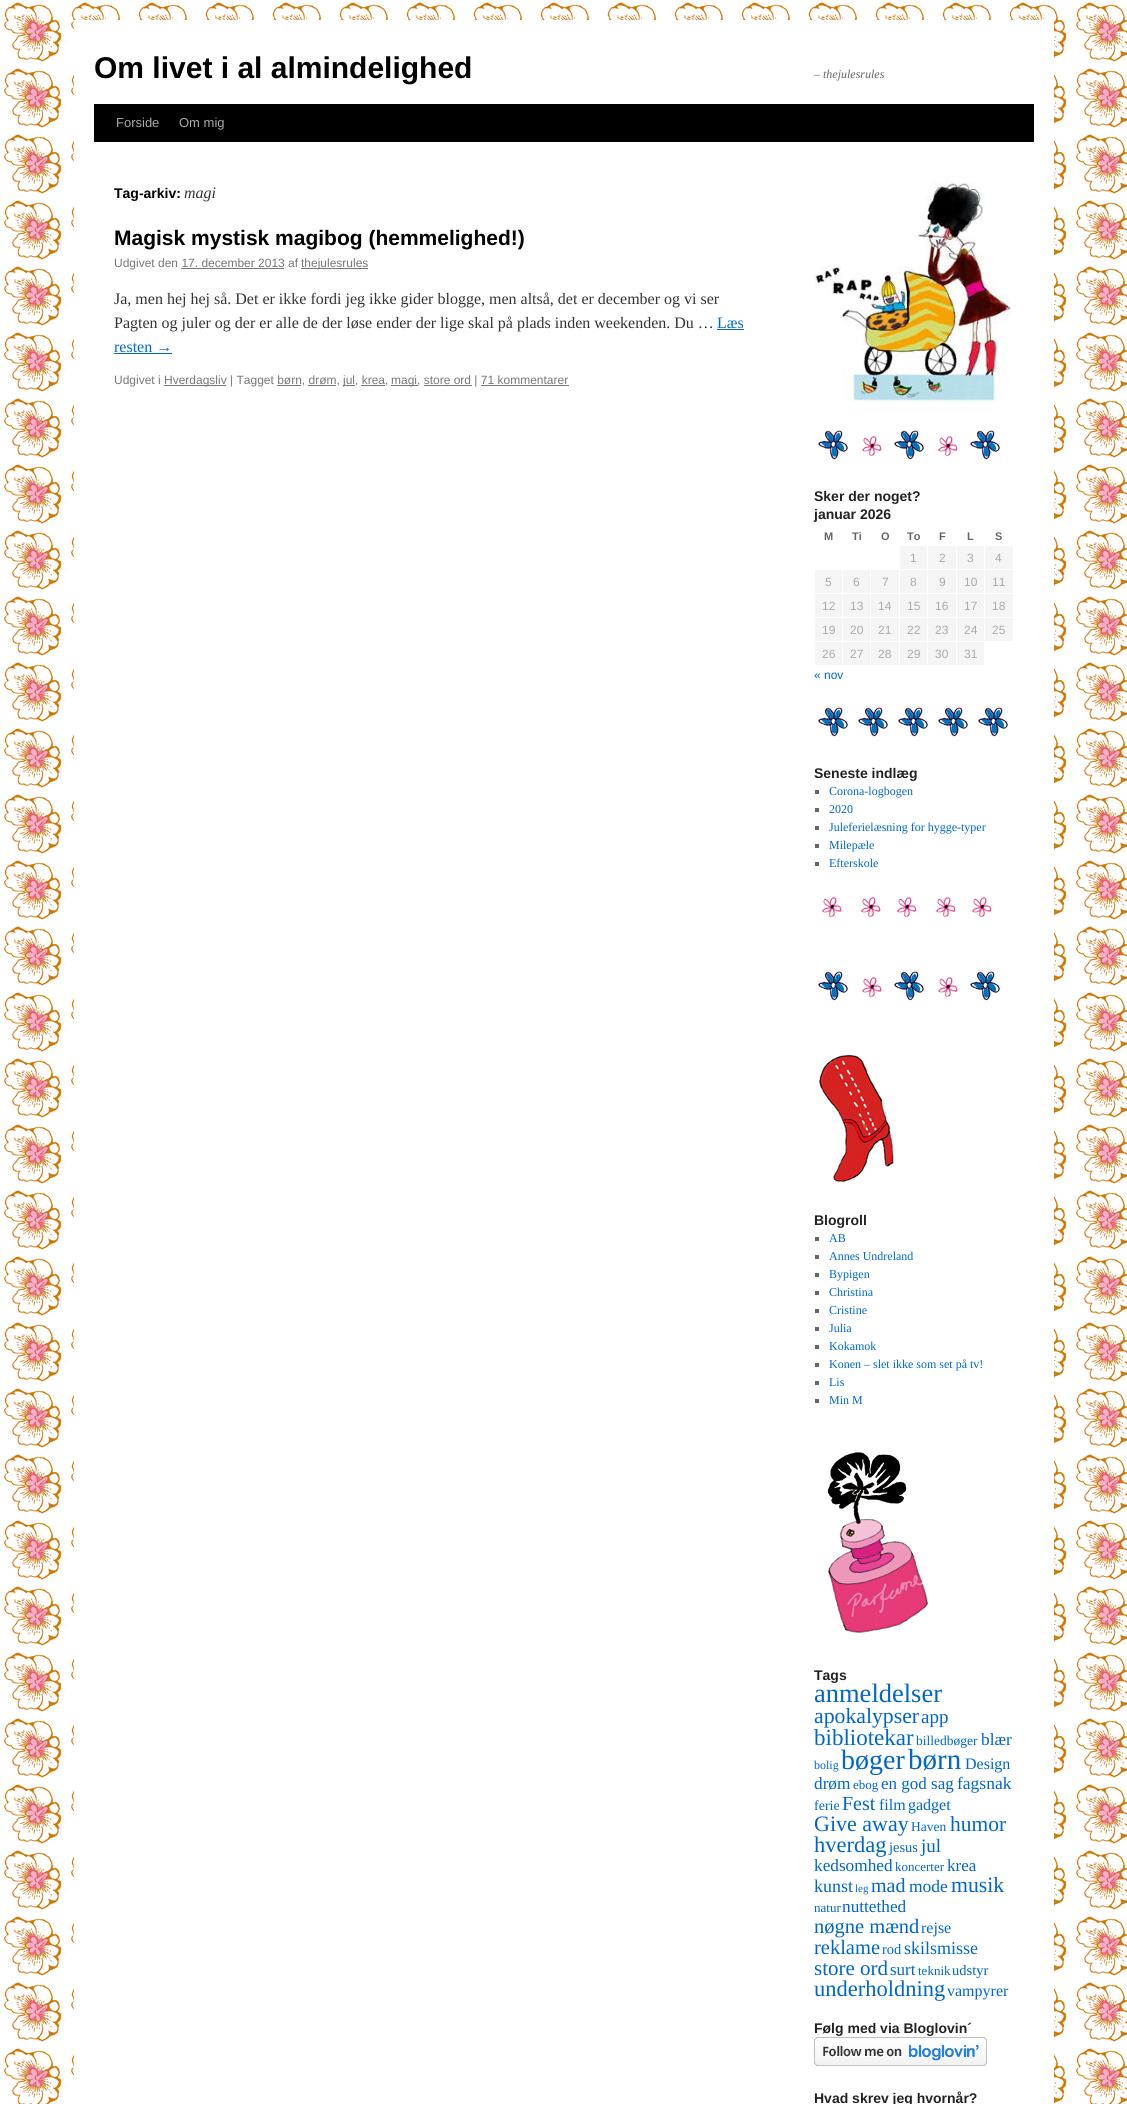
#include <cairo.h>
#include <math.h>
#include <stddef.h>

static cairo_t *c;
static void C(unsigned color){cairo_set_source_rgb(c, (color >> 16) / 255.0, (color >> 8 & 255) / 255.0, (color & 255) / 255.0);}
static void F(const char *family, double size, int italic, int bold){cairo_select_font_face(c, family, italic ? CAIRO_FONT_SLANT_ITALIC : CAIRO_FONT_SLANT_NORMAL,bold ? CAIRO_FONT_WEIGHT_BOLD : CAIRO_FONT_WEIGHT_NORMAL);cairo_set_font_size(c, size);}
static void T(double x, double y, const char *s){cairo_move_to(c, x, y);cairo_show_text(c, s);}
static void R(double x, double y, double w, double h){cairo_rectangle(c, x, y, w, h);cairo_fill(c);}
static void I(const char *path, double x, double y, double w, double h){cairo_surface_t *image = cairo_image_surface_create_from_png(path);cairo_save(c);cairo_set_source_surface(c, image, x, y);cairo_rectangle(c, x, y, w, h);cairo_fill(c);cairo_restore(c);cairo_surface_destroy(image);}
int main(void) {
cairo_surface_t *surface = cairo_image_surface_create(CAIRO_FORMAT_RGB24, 1127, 2104);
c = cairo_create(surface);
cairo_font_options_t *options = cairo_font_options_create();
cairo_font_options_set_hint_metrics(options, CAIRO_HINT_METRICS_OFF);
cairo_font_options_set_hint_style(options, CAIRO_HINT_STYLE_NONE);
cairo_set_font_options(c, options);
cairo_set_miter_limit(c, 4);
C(0xffffff);
cairo_paint(c);
I("1.png",0,0,1127,2104);
C(0xffffff);
R(74,20,980,2084);
F("Liberation Sans",30,0,1);
C(0x000000);
T(94,78,"Om livet i al almindelighed");
F("Liberation Serif",12,1,0);
C(0x666666);
T(814,78,"– thejulesrules");
C(0x000000);
R(94,104,940,38);
F("Liberation Sans",13,0,0);
C(0xaaaaaa);
T(116,127,"Forside");
T(179,127,"Om mig");
F("Liberation Sans",14,0,1);
C(0x000000);
T(114,198,"Tag-arkiv:");
F("Liberation Serif",16,1,0);
C(0x333333);
T(184,198,"magi");
F("Liberation Sans",21,0,1);
C(0x000000);
T(114,245,"Magisk mystisk magibog (hemmelighed!)");
F("Liberation Sans",12,0,0);
C(0x777777);
T(114,267,"Udgivet den 17. december 2013 af");
R(301,268,67,1);
T(301,267,"thejulesrules");
R(181,268,103,1);
F("Liberation Serif",16,0,0);
C(0x333333);
T(114,304,"Ja, men hej hej så. Det er ikke fordi jeg ikke gider blogge, men altså, det er december og vi ser");
T(114,328,"Pagten og juler og der er alle de der løse ender der lige skal på plads inden weekenden. Du …");
C(0x0066cc);
T(717,328,"Læs");
R(717,329,27,1);
T(114,352,"resten →");
R(114,353,58,1);
F("Liberation Sans",12,0,0);
C(0x777777);
T(114,384,"Udgivet i");
R(164,385,62,1);
T(164,384,"Hverdagsliv | Tagget børn, drøm,");
R(343,385,12,1);
T(343,384,"jul, krea,");
R(277,385,24,1);
R(308,385,28,1);
R(361,385,24,1);
R(391,385,27,1);
T(391,384,"magi, store ord | 71 kommentarer");
R(424,385,48,1);
R(481,385,88,1);
I("2.png",814,182,197,220);
I("3.png",818,430,30,30);
I("4.png",862,436,22,20);
I("3.png",894,430,30,30);
I("4.png",938,436,22,20);
I("3.png",970,430,30,30);
F("Liberation Sans",14,0,1);
C(0x222222);
T(814,501,"Sker der noget?");
T(814,519,"januar 2026");
F("Liberation Sans",11,0,1);
C(0x666666);
T(824,540,"M");
T(852,540,"Ti");
T(881,540,"O");
T(907,540,"To");
T(939,540,"F");
T(967,540,"L");
T(995,540,"S");
C(0xf5f5f5);
R(900,546,27,23);
F("Liberation Sans",12,0,0);
C(0xaaaaaa);
T(910,562,"1");
C(0xf5f5f5);
R(928,546,28,23);
C(0xaaaaaa);
T(939,562,"2");
C(0xf5f5f5);
R(957,546,27,23);
C(0xaaaaaa);
T(967,562,"3");
C(0xf5f5f5);
R(985,546,28,23);
C(0xaaaaaa);
T(995,562,"4");
C(0xf5f5f5);
R(815,570,27,23);
C(0xaaaaaa);
T(825,586,"5");
C(0xf5f5f5);
R(843,570,27,23);
C(0xaaaaaa);
T(853,586,"6");
C(0xf5f5f5);
R(871,570,28,23);
C(0xaaaaaa);
T(882,586,"7");
C(0xf5f5f5);
R(900,570,27,23);
C(0xaaaaaa);
T(910,586,"8");
C(0xf5f5f5);
R(928,570,28,23);
C(0xaaaaaa);
T(939,586,"9");
C(0xf5f5f5);
R(957,570,27,23);
C(0xaaaaaa);
T(964,586,"10");
C(0xf5f5f5);
R(985,570,28,23);
C(0xaaaaaa);
T(992,586,"11");
C(0xf5f5f5);
R(815,594,27,23);
C(0xaaaaaa);
T(822,610,"12");
C(0xf5f5f5);
R(843,594,27,23);
C(0xaaaaaa);
T(850,610,"13");
C(0xf5f5f5);
R(871,594,28,23);
C(0xaaaaaa);
T(878,610,"14");
C(0xf5f5f5);
R(900,594,27,23);
C(0xaaaaaa);
T(907,610,"15");
C(0xf5f5f5);
R(928,594,28,23);
C(0xaaaaaa);
T(935,610,"16");
C(0xf5f5f5);
R(957,594,27,23);
C(0xaaaaaa);
T(964,610,"17");
C(0xf5f5f5);
R(985,594,28,23);
C(0xaaaaaa);
T(992,610,"18");
C(0xf5f5f5);
R(815,618,27,23);
C(0xaaaaaa);
T(822,634,"19");
C(0xf5f5f5);
R(843,618,27,23);
C(0xaaaaaa);
T(850,634,"20");
C(0xf5f5f5);
R(871,618,28,23);
C(0xaaaaaa);
T(878,634,"21");
C(0xf5f5f5);
R(900,618,27,23);
C(0xaaaaaa);
T(907,634,"22");
C(0xf5f5f5);
R(928,618,28,23);
C(0xaaaaaa);
T(935,634,"23");
C(0xf5f5f5);
R(957,618,27,23);
C(0xaaaaaa);
T(964,634,"24");
C(0xf5f5f5);
R(985,618,28,23);
C(0xaaaaaa);
T(992,634,"25");
C(0xf5f5f5);
R(815,642,27,23);
C(0xaaaaaa);
T(822,658,"26");
C(0xf5f5f5);
R(843,642,27,23);
C(0xaaaaaa);
T(850,658,"27");
C(0xf5f5f5);
R(871,642,28,23);
C(0xaaaaaa);
T(878,658,"28");
C(0xf5f5f5);
R(900,642,27,23);
C(0xaaaaaa);
T(907,658,"29");
C(0xf5f5f5);
R(928,642,28,23);
C(0xaaaaaa);
T(935,658,"30");
C(0xf5f5f5);
R(957,642,27,23);
C(0xaaaaaa);
T(964,658,"31");
C(0x0066cc);
T(814,679,"« nov");
I("3.png",818,707,30,30);
I("3.png",858,707,30,30);
I("3.png",898,707,30,30);
I("3.png",938,707,30,30);
I("3.png",978,707,30,30);
F("Liberation Sans",14,0,1);
C(0x222222);
T(814,778,"Seneste indlæg");
C(0x666666);
R(815,790,4,4);
F("Liberation Serif",12,0,0);
C(0x0066cc);
T(829,795,"Corona-logbogen");
C(0x666666);
R(815,808,4,4);
C(0x0066cc);
T(829,813,"2020");
C(0x666666);
R(815,826,4,4);
C(0x0066cc);
T(829,831,"Juleferielæsning for hygge-typer");
C(0x666666);
R(815,844,4,4);
C(0x0066cc);
T(829,849,"Milepæle");
C(0x666666);
R(815,862,4,4);
C(0x0066cc);
T(829,867,"Efterskole");
I("4.png",822,897,22,20);
I("4.png",861,897,22,20);
I("4.png",897,897,22,20);
I("4.png",936,897,22,20);
I("4.png",972,897,22,20);
I("3.png",818,971,30,30);
I("4.png",862,977,22,20);
I("3.png",894,971,30,30);
I("4.png",938,977,22,20);
I("3.png",970,971,30,30);
I("5.png",819,1054,75,128);
F("Liberation Sans",14,0,1);
C(0x222222);
T(814,1225,"Blogroll");
C(0x666666);
R(815,1237,4,4);
F("Liberation Serif",12,0,0);
C(0x0066cc);
T(829,1242,"AB");
C(0x666666);
R(815,1255,4,4);
C(0x0066cc);
T(829,1260,"Annes Undreland");
C(0x666666);
R(815,1273,4,4);
C(0x0066cc);
T(829,1278,"Bypigen");
C(0x666666);
R(815,1291,4,4);
C(0x0066cc);
T(829,1296,"Christina");
C(0x666666);
R(815,1309,4,4);
C(0x0066cc);
T(829,1314,"Cristine");
C(0x666666);
R(815,1327,4,4);
C(0x0066cc);
T(829,1332,"Julia");
C(0x666666);
R(815,1345,4,4);
C(0x0066cc);
T(829,1350,"Kokamok");
C(0x666666);
R(815,1363,4,4);
C(0x0066cc);
T(829,1368,"Konen – slet ikke som set på tv!");
C(0x666666);
R(815,1381,4,4);
C(0x0066cc);
T(829,1386,"Lis");
C(0x666666);
R(815,1399,4,4);
C(0x0066cc);
T(829,1404,"Min M");
I("6.png",827,1452,101,181);
F("Liberation Sans",14,0,1);
C(0x222222);
T(814,1680,"Tags");
F("Liberation Serif",26.5,0,0);
C(0x0066cc);
T(814,1702,"anmeldelser");
F("Liberation Serif",21.75,0,0);
T(814,1723,"apokalypser");
F("Liberation Serif",19,0,0);
T(921,1723,"app");
F("Liberation Serif",23,0,0);
T(814,1745,"bibliotekar");
F("Liberation Serif",13.5,0,0);
T(916,1745,"billedbøger");
F("Liberation Serif",17.25,0,0);
T(981,1745,"blær");
F("Liberation Serif",12,0,0);
T(814,1769,"bolig");
F("Liberation Serif",28,0,0);
T(841,1769,"bøger");
F("Liberation Serif",29,0,0);
T(908,1769,"børn");
F("Liberation Serif",16,0,0);
T(965,1769,"Design");
F("Liberation Serif",17.25,0,0);
T(814,1789,"drøm");
F("Liberation Serif",13,0,0);
T(853,1789,"ebog");
F("Liberation Serif",17,0,0);
T(881,1789,"en god sag");
F("Liberation Serif",17.5,0,0);
T(957,1789,"fagsnak");
F("Liberation Serif",14,0,0);
T(814,1810,"ferie");
F("Liberation Serif",20,0,0);
T(842,1810,"Fest");
F("Liberation Serif",16,0,0);
T(879,1810,"film");
T(908,1810,"gadget");
F("Liberation Serif",22,0,0);
T(814,1831,"Give away");
F("Liberation Serif",13.5,0,0);
T(911,1831,"Haven");
F("Liberation Serif",21.5,0,0);
T(950,1831,"humor");
F("Liberation Serif",22.5,0,0);
T(814,1852,"hverdag");
F("Liberation Serif",14.5,0,0);
T(889,1852,"jesus");
F("Liberation Serif",19,0,0);
T(921,1852,"jul");
F("Liberation Serif",17.25,0,0);
T(814,1871,"kedsomhed");
F("Liberation Serif",13,0,0);
T(895,1871,"koncerter");
F("Liberation Serif",17,0,0);
T(947,1871,"krea");
F("Liberation Serif",18,0,0);
T(814,1892,"kunst");
F("Liberation Serif",11,0,0);
T(855,1892,"leg");
F("Liberation Serif",20,0,0);
T(871,1892,"mad");
F("Liberation Serif",17.5,0,0);
T(909,1892,"mode");
F("Liberation Serif",21.75,0,0);
T(951,1892,"musik");
F("Liberation Serif",13,0,0);
T(814,1912,"natur");
F("Liberation Serif",17.25,0,0);
T(842,1912,"nuttethed");
F("Liberation Serif",20.5,0,0);
T(814,1933,"nøgne mænd");
F("Liberation Serif",16,0,0);
T(921,1933,"rejse");
F("Liberation Serif",20.5,0,0);
T(814,1954,"reklame");
F("Liberation Serif",14.5,0,0);
T(882,1954,"rod");
F("Liberation Serif",18,0,0);
T(904,1954,"skilsmisse");
F("Liberation Serif",21,0,0);
T(814,1975,"store ord");
F("Liberation Serif",17,0,0);
T(890,1975,"surt");
F("Liberation Serif",13,0,0);
T(918,1975,"teknik");
F("Liberation Serif",14.5,0,0);
T(952,1975,"udstyr");
F("Liberation Serif",22.5,0,0);
T(814,1996,"underholdning");
F("Liberation Serif",16,0,0);
T(947,1996,"vampyrer");
F("Liberation Sans",14,0,1);
C(0x222222);
T(814,2033,"Følg med via Bloglovin´");
I("7.png",814,2037,173,29);
T(814,2103,"Hvad skrev jeg hvornår?");
cairo_surface_write_to_png(surface, "o.png");
cairo_font_options_destroy(options);
cairo_destroy(c);
cairo_surface_destroy(surface);
return 0;
}
